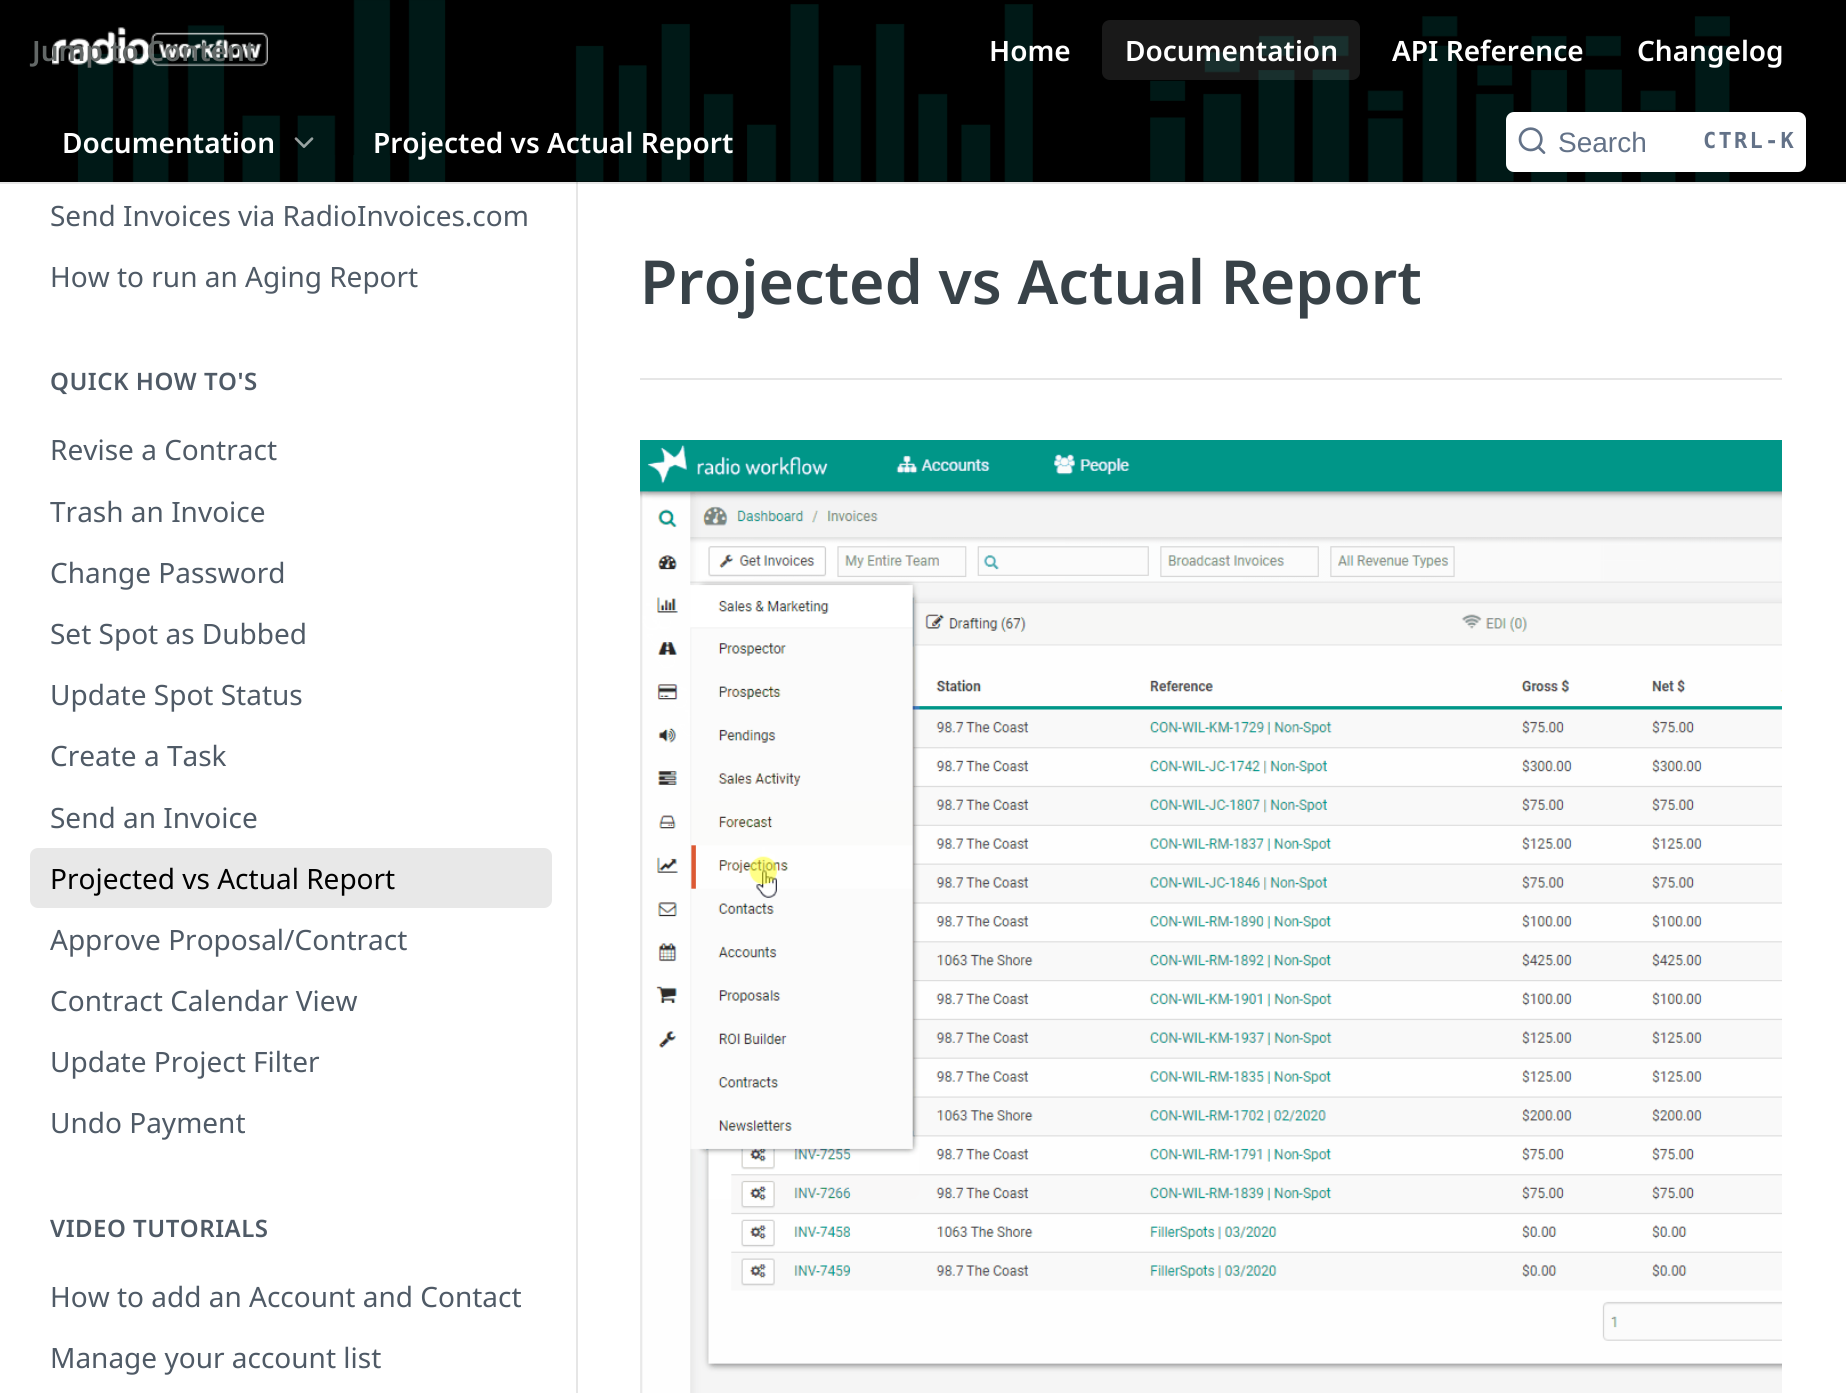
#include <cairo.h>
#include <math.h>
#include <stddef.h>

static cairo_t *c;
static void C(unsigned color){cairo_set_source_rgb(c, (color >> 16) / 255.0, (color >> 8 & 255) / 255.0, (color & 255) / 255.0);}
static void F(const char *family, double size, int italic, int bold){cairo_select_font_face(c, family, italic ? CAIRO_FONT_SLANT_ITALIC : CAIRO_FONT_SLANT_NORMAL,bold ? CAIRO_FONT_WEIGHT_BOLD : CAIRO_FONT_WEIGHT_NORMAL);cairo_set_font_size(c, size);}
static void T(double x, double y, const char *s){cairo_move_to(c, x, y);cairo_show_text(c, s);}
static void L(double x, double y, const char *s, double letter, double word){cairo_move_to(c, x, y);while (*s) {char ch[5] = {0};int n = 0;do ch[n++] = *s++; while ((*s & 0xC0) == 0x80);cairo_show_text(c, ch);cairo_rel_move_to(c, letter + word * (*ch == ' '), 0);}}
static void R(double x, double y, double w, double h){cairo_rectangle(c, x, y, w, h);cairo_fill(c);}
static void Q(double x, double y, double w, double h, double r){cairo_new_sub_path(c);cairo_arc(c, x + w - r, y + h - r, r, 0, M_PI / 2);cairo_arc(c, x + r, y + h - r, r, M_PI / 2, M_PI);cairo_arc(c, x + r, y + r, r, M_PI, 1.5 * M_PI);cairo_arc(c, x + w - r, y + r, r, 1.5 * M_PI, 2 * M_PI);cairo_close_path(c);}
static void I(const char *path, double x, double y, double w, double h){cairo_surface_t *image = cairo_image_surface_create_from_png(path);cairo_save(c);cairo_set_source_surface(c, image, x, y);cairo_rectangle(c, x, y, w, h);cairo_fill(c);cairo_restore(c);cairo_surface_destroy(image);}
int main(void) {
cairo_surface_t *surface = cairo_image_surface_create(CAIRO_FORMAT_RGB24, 1846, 1393);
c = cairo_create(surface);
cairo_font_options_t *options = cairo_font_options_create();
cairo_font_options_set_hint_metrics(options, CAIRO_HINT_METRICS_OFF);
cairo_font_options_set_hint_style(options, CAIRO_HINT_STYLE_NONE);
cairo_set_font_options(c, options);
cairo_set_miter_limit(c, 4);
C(0xffffff);
cairo_paint(c);
C(0xe6e6e6);
R(0,182,1846,2);
I("1.png",0,0,1846,182);
I("2.png",52,27,216,40);
F("Noto Sans SemiBold",28,0,0);
C(0xffffff);
T(989,61,"Home");
cairo_set_source_rgba(c,1,1,1,0.1);
Q(1102,20,258,60,8);
cairo_fill(c);
C(0xffffff);
T(1125,61,"Documentation");
T(1392,61,"API Reference");
T(1637,61,"Changelog");
C(0x636867);
T(32,61,"Jump to Content");
C(0xffffff);
T(62,153,"Documentation");
I("3.png",294,137,20,11);
T(373,153,"Projected vs Actual Report");
Q(1506,112,300,60,8);
cairo_fill(c);
I("4.png",1518,127,28,27);
F("Liberation Sans",28,0,0);
C(0x637288);
T(1558,152,"Search");
F("DejaVu Sans Mono",22,0,1);
L(1703,148,"CTRL-K",2.25,0);
C(0xe6e6e6);
R(576,182,2,1211);
C(0xcfcfcf);
R(576,182,2,2);
F("Noto Sans",28,0,0);
C(0x4f5a66);
T(50,226,"Send Invoices via RadioInvoices.com");
T(50,287,"How to run an Aging Report");
F("Noto Sans SemiBold",24,0,0);
L(50,390,"QUICK HOW TO'S",.5,0);
F("Noto Sans",28,0,0);
T(50,460,"Revise a Contract");
T(50,522,"Trash an Invoice");
T(50,583,"Change Password");
T(50,644,"Set Spot as Dubbed");
T(50,705,"Update Spot Status");
T(50,766,"Create a Task");
T(50,828,"Send an Invoice");
C(0xe8e8e8);
Q(30,848,522,60,8);
cairo_fill(c);
C(0x000000);
T(50,889,"Projected vs Actual Report");
C(0x4f5a66);
T(50,950,"Approve Proposal/Contract");
T(50,1011,"Contract Calendar View");
T(50,1072,"Update Project Filter");
T(50,1133,"Undo Payment");
F("Noto Sans SemiBold",24,0,0);
L(50,1237,"VIDEO TUTORIALS",.5,0);
F("Noto Sans",28,0,0);
T(50,1307,"How to add an Account and Contact");
T(50,1368,"Manage your account list");
C(0xe6e6e6);
R(640,378,1142,2);
F("Noto Sans SemiBold",60.75,0,0);
C(0x384248);
T(640,304,"Projected vs Actual Report");
I("5.png",640,440,1142,953);
cairo_surface_write_to_png(surface, "o.png");
cairo_font_options_destroy(options);
cairo_destroy(c);
cairo_surface_destroy(surface);
return 0;
}
